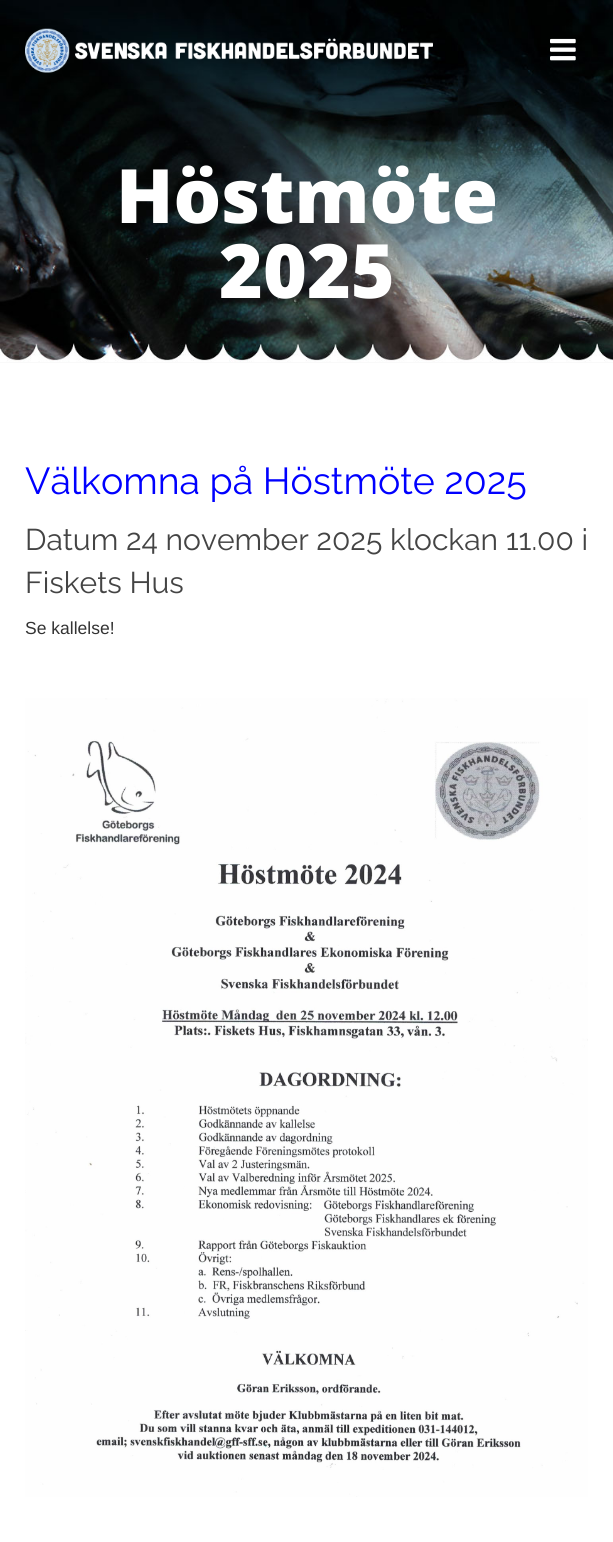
#include <cairo.h>
#include <math.h>
#include <stddef.h>

static cairo_t *c;
static void C(unsigned color){cairo_set_source_rgb(c, (color >> 16) / 255.0, (color >> 8 & 255) / 255.0, (color & 255) / 255.0);}
static void F(const char *family, double size, int italic, int bold){cairo_select_font_face(c, family, italic ? CAIRO_FONT_SLANT_ITALIC : CAIRO_FONT_SLANT_NORMAL,bold ? CAIRO_FONT_WEIGHT_BOLD : CAIRO_FONT_WEIGHT_NORMAL);cairo_set_font_size(c, size);}
static void T(double x, double y, const char *s){cairo_move_to(c, x, y);cairo_show_text(c, s);}
static void R(double x, double y, double w, double h){cairo_rectangle(c, x, y, w, h);cairo_fill(c);}
static void I(const char *path, double x, double y, double w, double h){cairo_surface_t *image = cairo_image_surface_create_from_png(path);cairo_save(c);cairo_set_source_surface(c, image, x, y);cairo_rectangle(c, x, y, w, h);cairo_fill(c);cairo_restore(c);cairo_surface_destroy(image);}
int main(void) {
cairo_surface_t *surface = cairo_image_surface_create(CAIRO_FORMAT_RGB24, 613, 1542);
c = cairo_create(surface);
cairo_font_options_t *options = cairo_font_options_create();
cairo_font_options_set_hint_metrics(options, CAIRO_HINT_METRICS_OFF);
cairo_font_options_set_hint_style(options, CAIRO_HINT_STYLE_NONE);
cairo_set_font_options(c, options);
cairo_set_miter_limit(c, 4);
C(0xffffff);
cairo_paint(c);
I("3.png",0,0,613,362);
I("1.png",25,28,408,45);
I("2.png",550,38,26,23);
C(0xf9f9f9);
R(0,362,613,1);
F("Open Sans ExtraBold",75,0,0);
C(0xffffff);
T(116,223,"Höstmöte");
T(219,298,"2025");
F("Raleway",37.5,0,0);
C(0x0000ff);
T(25,494,"Välkomna på Höstmöte 2025");
F("Raleway",30,0,0);
C(0x444444);
T(25,550,"Datum 24 november 2025 klockan 11.00 i");
T(25,593,"Fiskets Hus");
F("Liberation Sans",17.5,0,0);
C(0x333333);
T(25,634,"Se kallelse!");
I("4.png",25,698,563,799);
cairo_surface_write_to_png(surface, "o.png");
cairo_font_options_destroy(options);
cairo_destroy(c);
cairo_surface_destroy(surface);
return 0;
}
